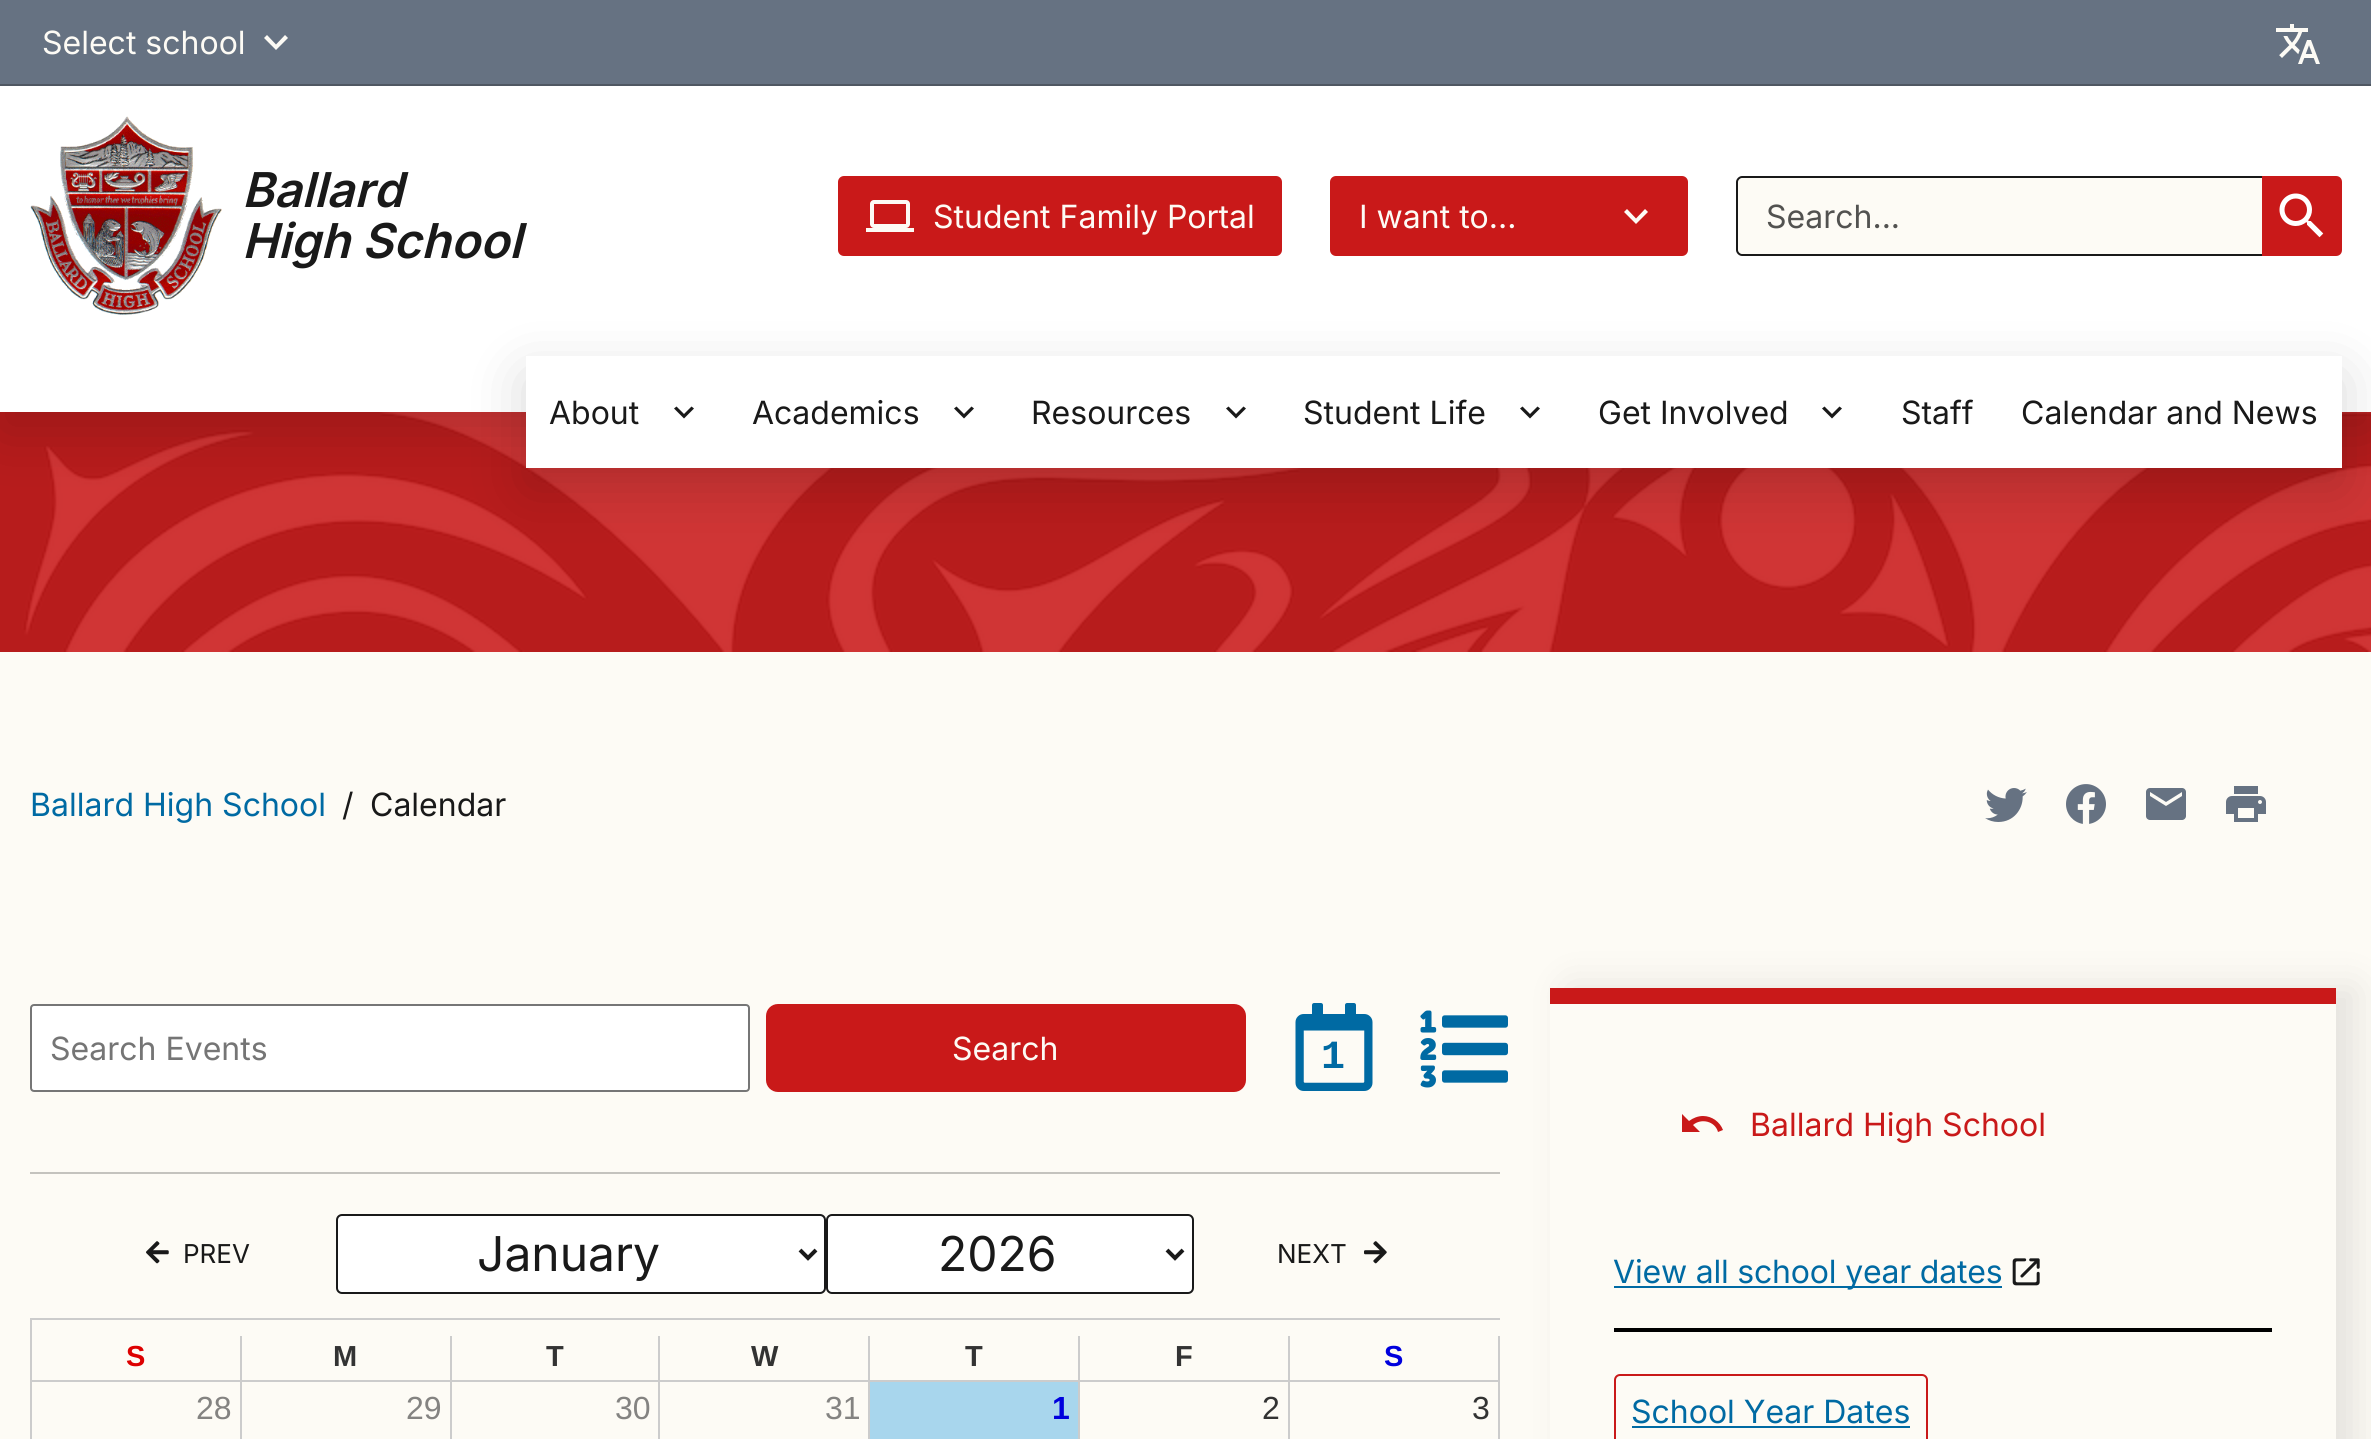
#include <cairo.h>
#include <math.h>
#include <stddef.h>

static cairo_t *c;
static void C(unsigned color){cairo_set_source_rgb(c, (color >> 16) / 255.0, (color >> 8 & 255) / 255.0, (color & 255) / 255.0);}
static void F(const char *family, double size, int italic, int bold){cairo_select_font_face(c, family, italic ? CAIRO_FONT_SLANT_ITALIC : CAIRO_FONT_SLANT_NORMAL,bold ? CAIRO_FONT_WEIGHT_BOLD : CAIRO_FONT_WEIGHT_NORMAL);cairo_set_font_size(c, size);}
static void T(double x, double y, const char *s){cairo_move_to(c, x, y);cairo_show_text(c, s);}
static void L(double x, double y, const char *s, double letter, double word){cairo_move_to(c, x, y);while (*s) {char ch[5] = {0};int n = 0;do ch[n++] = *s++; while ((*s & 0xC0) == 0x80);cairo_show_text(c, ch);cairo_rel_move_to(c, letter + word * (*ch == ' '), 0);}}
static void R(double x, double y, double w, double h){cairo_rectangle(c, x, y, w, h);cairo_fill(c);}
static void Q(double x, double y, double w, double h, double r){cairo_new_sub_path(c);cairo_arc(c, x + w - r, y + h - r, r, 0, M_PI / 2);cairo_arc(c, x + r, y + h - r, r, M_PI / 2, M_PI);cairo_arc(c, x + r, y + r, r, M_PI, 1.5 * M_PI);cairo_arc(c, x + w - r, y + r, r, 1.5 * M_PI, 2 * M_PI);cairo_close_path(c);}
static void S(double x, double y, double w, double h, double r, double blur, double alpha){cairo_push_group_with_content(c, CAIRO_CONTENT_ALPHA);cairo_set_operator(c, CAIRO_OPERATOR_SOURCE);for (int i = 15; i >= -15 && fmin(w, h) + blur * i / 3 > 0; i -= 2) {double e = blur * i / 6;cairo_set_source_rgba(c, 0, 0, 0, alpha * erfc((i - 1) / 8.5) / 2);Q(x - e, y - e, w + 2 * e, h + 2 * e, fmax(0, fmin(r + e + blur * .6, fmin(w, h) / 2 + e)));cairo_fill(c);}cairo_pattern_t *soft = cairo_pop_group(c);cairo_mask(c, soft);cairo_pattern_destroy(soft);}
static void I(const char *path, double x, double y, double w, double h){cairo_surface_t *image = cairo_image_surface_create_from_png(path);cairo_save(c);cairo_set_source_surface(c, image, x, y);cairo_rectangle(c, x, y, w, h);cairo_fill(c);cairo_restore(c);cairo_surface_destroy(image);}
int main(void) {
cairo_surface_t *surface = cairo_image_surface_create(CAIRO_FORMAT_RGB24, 2371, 1439);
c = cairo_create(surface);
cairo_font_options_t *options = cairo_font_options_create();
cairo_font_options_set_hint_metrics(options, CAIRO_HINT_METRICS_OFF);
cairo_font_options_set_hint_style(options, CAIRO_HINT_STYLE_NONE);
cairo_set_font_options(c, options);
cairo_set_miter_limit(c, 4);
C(0xfdfbf5);
cairo_paint(c);
I("5.png",0,412,2371,240);
C(0x000000);
S(0,20,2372,412,0,30,.15);
C(0xffffff);
R(0,86,2371,326);
C(0x667282);
R(0,0,2371,84);
F("Inter",32,0,0);
C(0xfdfbf5);
T(42,54,"Select school");
cairo_new_path(c);
cairo_move_to(c,267,35);
cairo_line_to(c,276,44.5);
cairo_line_to(c,285,35);
cairo_line_to(c,288,38);
cairo_line_to(c,276,50);
cairo_line_to(c,264,38);
cairo_close_path(c);
cairo_fill(c);
I("1.png",2276,24,44,40);
C(0x4f5762);
R(0,84,2371,2);
I("2.png",30,116,192,200);
F("Inter SemiBold",48,1,0);
C(0x191919);
T(242,207,"Ballard");
T(242,258,"High School");
C(0xc91919);
Q(838,176,444,80,6);
cairo_fill(c);
I("3.png",866,200,48,32);
F("Inter",32,0,0);
C(0xfdfbf5);
T(933,228,"Student Family Portal");
C(0xc91919);
Q(1330,176,358,80,6);
cairo_fill(c);
C(0xfdfbf5);
T(1359,228,"I want to...");
cairo_new_path(c);
cairo_move_to(c,1627,209);
cairo_line_to(c,1636,218.5);
cairo_line_to(c,1645,209);
cairo_line_to(c,1648,212);
cairo_line_to(c,1636,224);
cairo_line_to(c,1624,212);
cairo_close_path(c);
cairo_fill(c);
cairo_new_path(c);
cairo_move_to(c,1742,178);
cairo_line_to(c,2262,178);
cairo_line_to(c,2262,254);
cairo_line_to(c,1742,254);
cairo_curve_to(c,1740,254,1738,252,1738,250);
cairo_line_to(c,1738,182);
cairo_curve_to(c,1738,180,1740,178,1742,178);
cairo_close_path(c);
cairo_fill(c);
C(0x191919);
cairo_set_fill_rule(c,CAIRO_FILL_RULE_EVEN_ODD);
cairo_new_path(c);
cairo_move_to(c,1742,176);
cairo_line_to(c,2262,176);
cairo_line_to(c,2262,256);
cairo_line_to(c,1742,256);
cairo_curve_to(c,1739,256,1736,253,1736,250);
cairo_line_to(c,1736,182);
cairo_curve_to(c,1736,179,1739,176,1742,176);
cairo_close_path(c);
cairo_move_to(c,1742,178);
cairo_line_to(c,2262,178);
cairo_line_to(c,2262,254);
cairo_line_to(c,1742,254);
cairo_curve_to(c,1740,254,1738,252,1738,250);
cairo_line_to(c,1738,182);
cairo_curve_to(c,1738,180,1740,178,1742,178);
cairo_close_path(c);
cairo_fill(c);
C(0x525250);
T(1766,228,"Search...");
C(0xc91919);
cairo_new_path(c);
cairo_move_to(c,2262,176);
cairo_line_to(c,2336,176);
cairo_curve_to(c,2339.5,176,2342,178.5,2342,182);
cairo_line_to(c,2342,250);
cairo_curve_to(c,2342,253.5,2339.5,256,2336,256);
cairo_line_to(c,2262,256);
cairo_close_path(c);
cairo_fill(c);
I("4.png",2279,193,45,45);
C(0x000000);
S(526,376,1816,112,0,30,.15);
C(0xffffff);
R(526,356,1816,112);
C(0x191919);
T(549,424,"About");
cairo_set_fill_rule(c,CAIRO_FILL_RULE_WINDING);
cairo_new_path(c);
cairo_move_to(c,676.5,406.5);
cairo_line_to(c,684,414);
cairo_line_to(c,691.5,406.5);
cairo_line_to(c,694,408.5);
cairo_line_to(c,684,418.5);
cairo_line_to(c,674,408.5);
cairo_close_path(c);
cairo_fill(c);
T(752,424,"Academics");
cairo_new_path(c);
cairo_move_to(c,956.5,406.5);
cairo_line_to(c,964,414);
cairo_line_to(c,971.5,406.5);
cairo_line_to(c,974,408.5);
cairo_line_to(c,964,418.5);
cairo_line_to(c,954,408.5);
cairo_close_path(c);
cairo_fill(c);
T(1031,424,"Resources");
cairo_new_path(c);
cairo_move_to(c,1228.5,406.5);
cairo_line_to(c,1236,414);
cairo_line_to(c,1243.5,406.5);
cairo_line_to(c,1246,408.5);
cairo_line_to(c,1236,418.5);
cairo_line_to(c,1226,408.5);
cairo_close_path(c);
cairo_fill(c);
T(1303,424,"Student Life");
cairo_new_path(c);
cairo_move_to(c,1522.5,406.5);
cairo_line_to(c,1530,414);
cairo_line_to(c,1537.5,406.5);
cairo_line_to(c,1540,408.5);
cairo_line_to(c,1530,418.5);
cairo_line_to(c,1520,408.5);
cairo_close_path(c);
cairo_fill(c);
T(1598,424,"Get Involved");
cairo_new_path(c);
cairo_move_to(c,1824.5,406.5);
cairo_line_to(c,1832,414);
cairo_line_to(c,1839.5,406.5);
cairo_line_to(c,1842,408.5);
cairo_line_to(c,1832,418.5);
cairo_line_to(c,1822,408.5);
cairo_close_path(c);
cairo_fill(c);
T(1901,424,"Staff");
T(2021,424,"Calendar and News");
C(0x006aa3);
T(30,816,"Ballard High School");
C(0x191919);
T(342,816,"/");
T(370,816,"Calendar");
I("6.png",1985,788,42,34);
I("7.png",2066,784,40,40);
I("8.png",2146,788,40,32);
I("9.png",2226,786,40,36);
C(0xffffff);
Q(31,1005,718,86,3);
cairo_fill_preserve(c);
C(0x767676);
cairo_stroke(c);
C(0x757575);
T(50,1060,"Search Events");
C(0xc91919);
Q(767,1005,478,86,11);
cairo_fill_preserve(c);
cairo_stroke(c);
C(0xfdfbf5);
T(952,1060,"Search");
I("10.png",1295,1003,78,88);
F("Liberation Mono",40,0,1);
C(0x006aa3);
T(1321,1068,"1");
I("11.png",1420,1010,88,78);
C(0xc4c3be);
R(30,1172,1470,2);
I("12.png",146,1241,23,23);
F("Inter",26,0,0);
C(0x191919);
T(183,1263,"PREV");
C(0xffffff);
Q(337,1215,488,78,5);
cairo_fill_preserve(c);
C(0x191919);
cairo_stroke(c);
cairo_new_path(c);
cairo_move_to(c,800,1250);
cairo_line_to(c,808,1258);
cairo_line_to(c,816,1250);
cairo_set_line_width(c,4);
cairo_stroke(c);
F("Inter",48,0,0);
T(477,1271,"January");
C(0xffffff);
Q(827,1215,366,78,5);
cairo_fill_preserve(c);
C(0x191919);
cairo_set_line_width(c,2);
cairo_stroke(c);
cairo_new_path(c);
cairo_move_to(c,1167,1250);
cairo_line_to(c,1175,1258);
cairo_line_to(c,1183,1250);
cairo_set_line_width(c,4);
cairo_stroke(c);
T(938,1271,"2026");
F("Inter",26,0,0);
T(1277,1263,"NEXT");
I("13.png",1364,1241,23,23);
C(0xcccccc);
R(30,1318,1470,2);
R(30,1318,2,121);
R(240,1336,2,44);
F("Liberation Sans",29,0,1);
C(0xdd0000);
T(126,1366,"S");
C(0xcccccc);
R(450,1336,2,44);
C(0x333333);
T(333,1366,"M");
C(0xcccccc);
R(658,1336,2,44);
C(0x333333);
T(546,1366,"T");
C(0xcccccc);
R(868,1336,2,44);
C(0x333333);
T(751,1366,"W");
C(0xcccccc);
R(1078,1336,2,44);
C(0x333333);
T(965,1366,"T");
C(0xcccccc);
R(1288,1336,2,44);
C(0x333333);
T(1175,1366,"F");
C(0xcccccc);
R(1498,1336,2,44);
C(0x0000dd);
T(1384,1366,"S");
C(0xcccccc);
R(32,1380,1468,2);
R(240,1380,2,59);
F("Liberation Sans",32,0,0);
C(0x848381);
T(196,1419,"28");
C(0xcccccc);
R(450,1380,2,59);
C(0x848381);
T(406,1419,"29");
C(0xcccccc);
R(658,1380,2,59);
C(0x848381);
T(615,1419,"30");
C(0xcccccc);
R(868,1380,2,59);
C(0x848381);
T(825,1419,"31");
C(0xcccccc);
R(1078,1380,2,59);
C(0xa8d6ed);
R(870,1382,208,57);
F("Liberation Sans",32,0,1);
C(0x0000dd);
T(1052,1419,"1");
C(0xcccccc);
R(1288,1380,2,59);
F("Liberation Sans",32,0,0);
C(0x333333);
T(1262,1419,"2");
C(0xcccccc);
R(1498,1380,2,59);
C(0x333333);
T(1472,1419,"3");
cairo_save(c);
cairo_set_fill_rule(c,CAIRO_FILL_RULE_EVEN_ODD);
cairo_new_path(c);
cairo_move_to(c,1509,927);
cairo_line_to(c,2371,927);
cairo_line_to(c,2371,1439);
cairo_line_to(c,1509,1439);
cairo_close_path(c);
cairo_move_to(c,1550,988);
cairo_line_to(c,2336,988);
cairo_line_to(c,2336,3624);
cairo_line_to(c,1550,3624);
cairo_close_path(c);
cairo_clip(c);
C(0x000000);
S(1570,988,786,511,0,20,.1);
cairo_restore(c);
C(0xc91919);
R(1550,988,786,16);
cairo_new_path(c);
cairo_move_to(c,1703,1116);
cairo_curve_to(c,1698,1116,1693,1118,1689,1121);
cairo_line_to(c,1682,1114);
cairo_line_to(c,1682,1132);
cairo_line_to(c,1700,1132);
cairo_line_to(c,1693,1125);
cairo_curve_to(c,1701,1118,1715,1121,1718,1132);
cairo_line_to(c,1723,1130);
cairo_curve_to(c,1720,1122,1712,1116,1703,1116);
cairo_close_path(c);
cairo_fill(c);
F("Inter",32,0,0);
T(1750,1136,"Ballard High School");
C(0x006aa3);
R(1614,1286,388,2);
L(1613,1283,"View all school year dates",-.2,0);
I("14.png",2012,1258,28,28);
C(0x000000);
R(1614,1328,658,4);
Q(1615,1375,312,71,5);
C(0xc91919);
cairo_set_line_width(c,2);
cairo_stroke(c);
C(0x006aa3);
T(1631,1423,"School Year Dates");
R(1632,1426,278,2);
cairo_surface_write_to_png(surface, "o.png");
cairo_font_options_destroy(options);
cairo_destroy(c);
cairo_surface_destroy(surface);
return 0;
}
